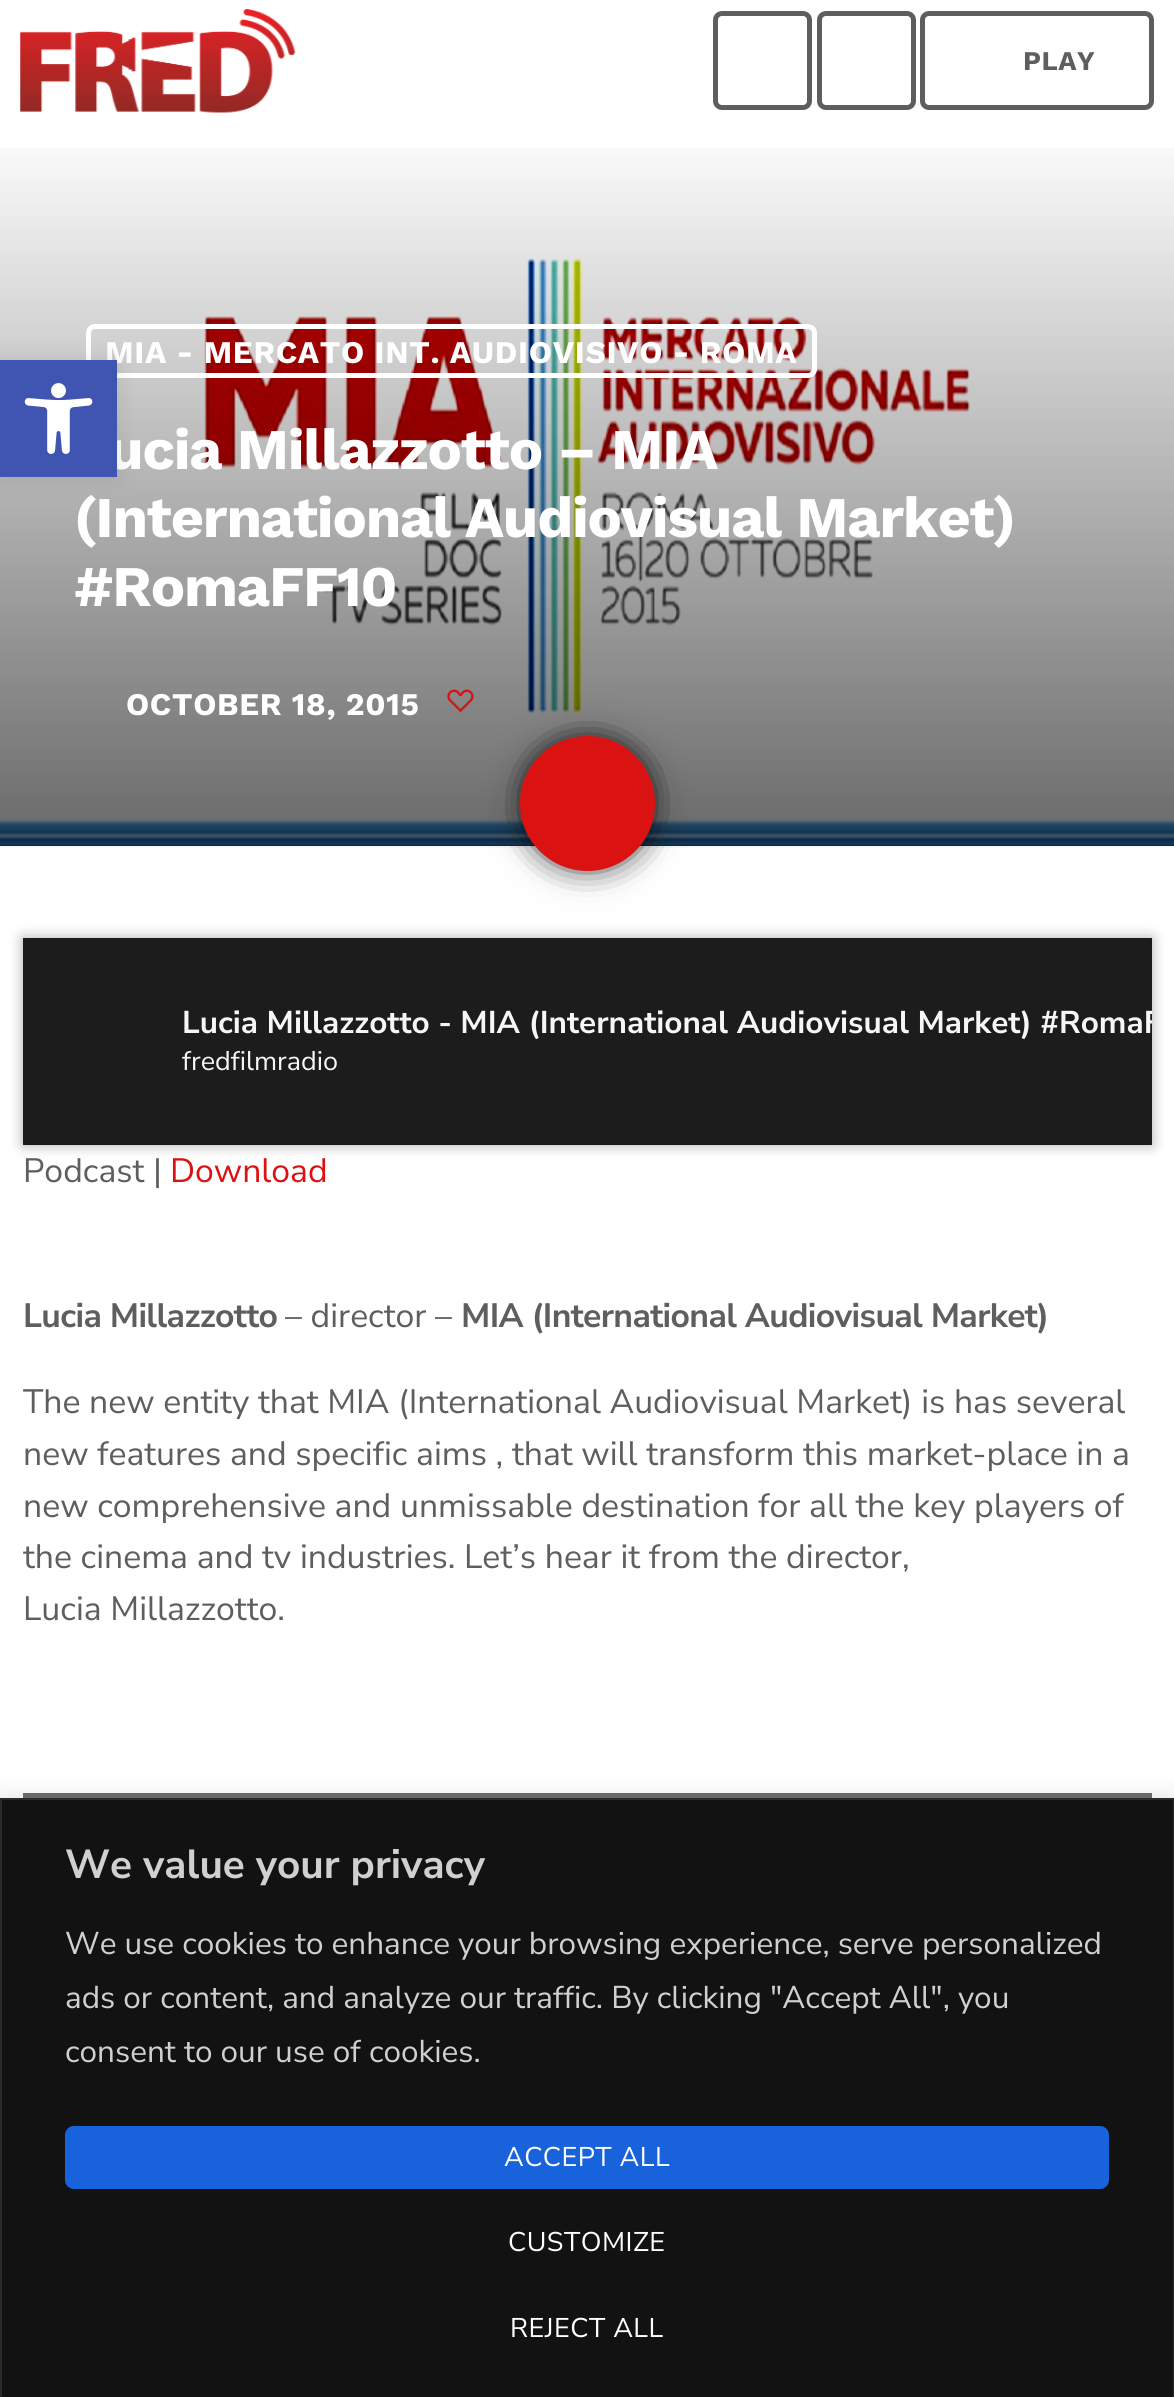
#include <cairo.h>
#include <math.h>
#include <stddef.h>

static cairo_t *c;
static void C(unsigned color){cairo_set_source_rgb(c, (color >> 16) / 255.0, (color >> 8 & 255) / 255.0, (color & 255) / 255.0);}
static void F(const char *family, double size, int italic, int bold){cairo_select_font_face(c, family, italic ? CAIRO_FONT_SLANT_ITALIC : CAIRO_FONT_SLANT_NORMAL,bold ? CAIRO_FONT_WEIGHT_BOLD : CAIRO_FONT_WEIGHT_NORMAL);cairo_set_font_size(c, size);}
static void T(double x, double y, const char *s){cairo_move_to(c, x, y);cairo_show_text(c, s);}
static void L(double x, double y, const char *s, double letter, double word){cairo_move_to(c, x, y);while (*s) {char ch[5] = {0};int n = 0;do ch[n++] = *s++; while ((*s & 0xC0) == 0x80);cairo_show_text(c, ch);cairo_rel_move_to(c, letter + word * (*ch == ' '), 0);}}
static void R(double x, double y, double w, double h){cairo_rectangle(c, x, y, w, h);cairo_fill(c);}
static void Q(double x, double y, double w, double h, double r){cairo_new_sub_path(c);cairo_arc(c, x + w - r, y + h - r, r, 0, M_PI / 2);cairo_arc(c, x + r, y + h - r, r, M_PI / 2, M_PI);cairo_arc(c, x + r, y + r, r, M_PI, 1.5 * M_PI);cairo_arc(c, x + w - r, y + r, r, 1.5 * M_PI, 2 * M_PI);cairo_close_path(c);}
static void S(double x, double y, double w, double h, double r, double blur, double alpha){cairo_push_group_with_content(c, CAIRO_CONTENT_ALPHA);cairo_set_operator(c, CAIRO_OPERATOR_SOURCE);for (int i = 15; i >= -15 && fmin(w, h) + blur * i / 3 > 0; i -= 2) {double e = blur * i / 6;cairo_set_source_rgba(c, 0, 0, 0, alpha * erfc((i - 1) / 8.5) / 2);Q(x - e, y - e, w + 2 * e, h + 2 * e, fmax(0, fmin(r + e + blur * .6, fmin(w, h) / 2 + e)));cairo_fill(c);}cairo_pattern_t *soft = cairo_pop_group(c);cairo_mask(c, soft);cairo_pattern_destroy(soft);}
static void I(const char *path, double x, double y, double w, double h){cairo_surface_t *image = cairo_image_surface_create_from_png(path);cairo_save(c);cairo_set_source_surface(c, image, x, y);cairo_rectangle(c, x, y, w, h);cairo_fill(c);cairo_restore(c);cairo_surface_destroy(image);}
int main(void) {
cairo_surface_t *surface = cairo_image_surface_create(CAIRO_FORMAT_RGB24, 1174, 2397);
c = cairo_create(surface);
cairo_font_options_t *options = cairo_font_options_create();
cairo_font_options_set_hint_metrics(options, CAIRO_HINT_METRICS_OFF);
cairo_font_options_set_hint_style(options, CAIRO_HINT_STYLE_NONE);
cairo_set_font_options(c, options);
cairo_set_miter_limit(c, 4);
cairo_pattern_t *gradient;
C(0xf8f8f8);
cairo_paint(c);
C(0xffffff);
R(0,0,1174,122);
I("1.png",20,9,276,104);
Q(715.5,13.5,94,94,6.5);
C(0x5e5e5e);
cairo_set_line_width(c,5);
cairo_stroke(c);
Q(819.5,13.5,94,94,6.5);
cairo_stroke(c);
Q(922.5,13.5,229,94,6.5);
cairo_stroke(c);
F("Work Sans",27,0,1);
L(1023,70,"PLAY",.5,0);
gradient = cairo_pattern_create_linear(587,121,587,846);
cairo_pattern_add_color_stop_rgba(gradient,0,0.18,0.18,0.18,1);
cairo_pattern_add_color_stop_rgba(gradient,1,0,0,0,1);
cairo_set_source(c,gradient);
cairo_pattern_destroy(gradient);
R(0,845,1174,1);
I("2.png",0,122,1174,724);
gradient = cairo_pattern_create_linear(587,846,587,122);
cairo_pattern_add_color_stop_rgba(gradient,0,0,0,0,.59);
cairo_pattern_add_color_stop_rgba(gradient,1,0,0,0,0);
cairo_set_source(c,gradient);
cairo_pattern_destroy(gradient);
R(0,148,1174,698);
Q(88.5,326.5,726,49,6.5);
C(0xffffff);
cairo_stroke(c);
F("Work Sans",31.5,0,1);
L(105,363,"MIA - MERCATO INT. AUDIOVISIVO - ROMA",.65,0);
F("Work Sans",57.4,0,1);
L(108,469,"ucia Millazzotto – MIA",-1.15,0);
L(74,537,"(International Audiovisual Market)",-1.15,0);
L(74,606,"#RomaFF10",-1.15,0);
F("Work Sans",31.5,0,1);
L(126,715,"OCTOBER 18, 2015",.65,0);
I("3.png",447,689,27,24);
R(0,848,1174,950);
C(0x000000);
S(513,729,149,149,74.5,17,.2);
S(536,752,103,103,51.5,17,.2);
S(536,752,103,103,51.5,17,.2);
S(536,752,103,103,51.5,17,.2);
S(536,752,103,103,51.5,17,.2);
S(536,752,103,103,51.5,17,.2);
S(536,752,103,103,51.5,17,.2);
S(536,752,103,103,51.5,17,.2);
S(536,752,103,103,51.5,17,.2);
S(536,752,103,103,51.5,17,.2);
C(0xdb1212);
cairo_arc(c,587.5,803.5,67.5,0,2 * M_PI);
cairo_fill(c);
C(0x000000);
S(23,938,1129,207,0,7,.32);
C(0x1c1c1c);
R(23,938,1129,207);
cairo_save(c);
cairo_rectangle(c,182,1004,970,40);
cairo_clip(c);
F("Nunito Sans",31.5,0,1);
C(0xf6f6f6);
T(182,1033,"Lucia Millazzotto - MIA (International Audiovisual Market) #RomaF");
cairo_restore(c);
F("Nunito Sans",27,0,0);
C(0xf6f6f6);
T(182,1070,"fredfilmradio");
F("Nunito Sans",33.75,0,0);
C(0x5e5e5e);
T(23,1182,"Podcast |");
C(0xdb1212);
T(170,1182,"Download");
F("Nunito Sans",33.75,0,1);
C(0x5e5e5e);
L(23,1327,"Lucia Millazzotto",-.65,0);
F("Nunito Sans",33.75,0,0);
T(285,1327,"– director –");
F("Nunito Sans",33.75,0,1);
L(461,1327,"MIA (International Audiovisual Market)",-.65,0);
F("Nunito Sans",33.75,0,0);
T(23,1413,"The new entity that MIA (International Audiovisual Market) is has several");
T(23,1465,"new features and specific aims , that will transform this market-place in a");
T(23,1517,"new comprehensive and unmissable destination for all the key players of");
T(23,1568,"the cinema and tv industries. Let’s hear it from the director,");
T(23,1620,"Lucia Millazzotto.");
R(23,1793,1129,5);
C(0x000000);
S(0,360,117,117,0,11,.1);
C(0x4054b2);
R(0,360,117,117);
I("4.png",24,383,69,71);
C(0xacabab);
S(0,1796,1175,600,0,11,.3);
C(0x121212);
cairo_rectangle(c,1,1799,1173,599);
cairo_fill_preserve(c);
C(0x2a2a2a);
cairo_set_line_width(c,2);
cairo_stroke(c);
F("Nunito Sans",40.5,0,1);
C(0xd0d0d0);
T(65,1878,"We value your privacy");
F("Nunito Sans",31.5,0,0);
T(65,1954,"We use cookies to enhance your browsing experience, serve personalized");
T(65,2008,"ads or content, and analyze our traffic. By clicking \"Accept All\", you");
T(65,2062,"consent to our use of cookies.");
C(0x1863dc);
Q(65,2126,1044,63,9);
cairo_fill(c);
F("Nunito Sans",27,0,0);
C(0xffffff);
L(504,2166,"ACCEPT ALL",.5,0);
L(508,2251,"CUSTOMIZE",.5,0);
L(510,2337,"REJECT ALL",.5,0);
cairo_surface_write_to_png(surface, "o.png");
cairo_font_options_destroy(options);
cairo_destroy(c);
cairo_surface_destroy(surface);
return 0;
}
